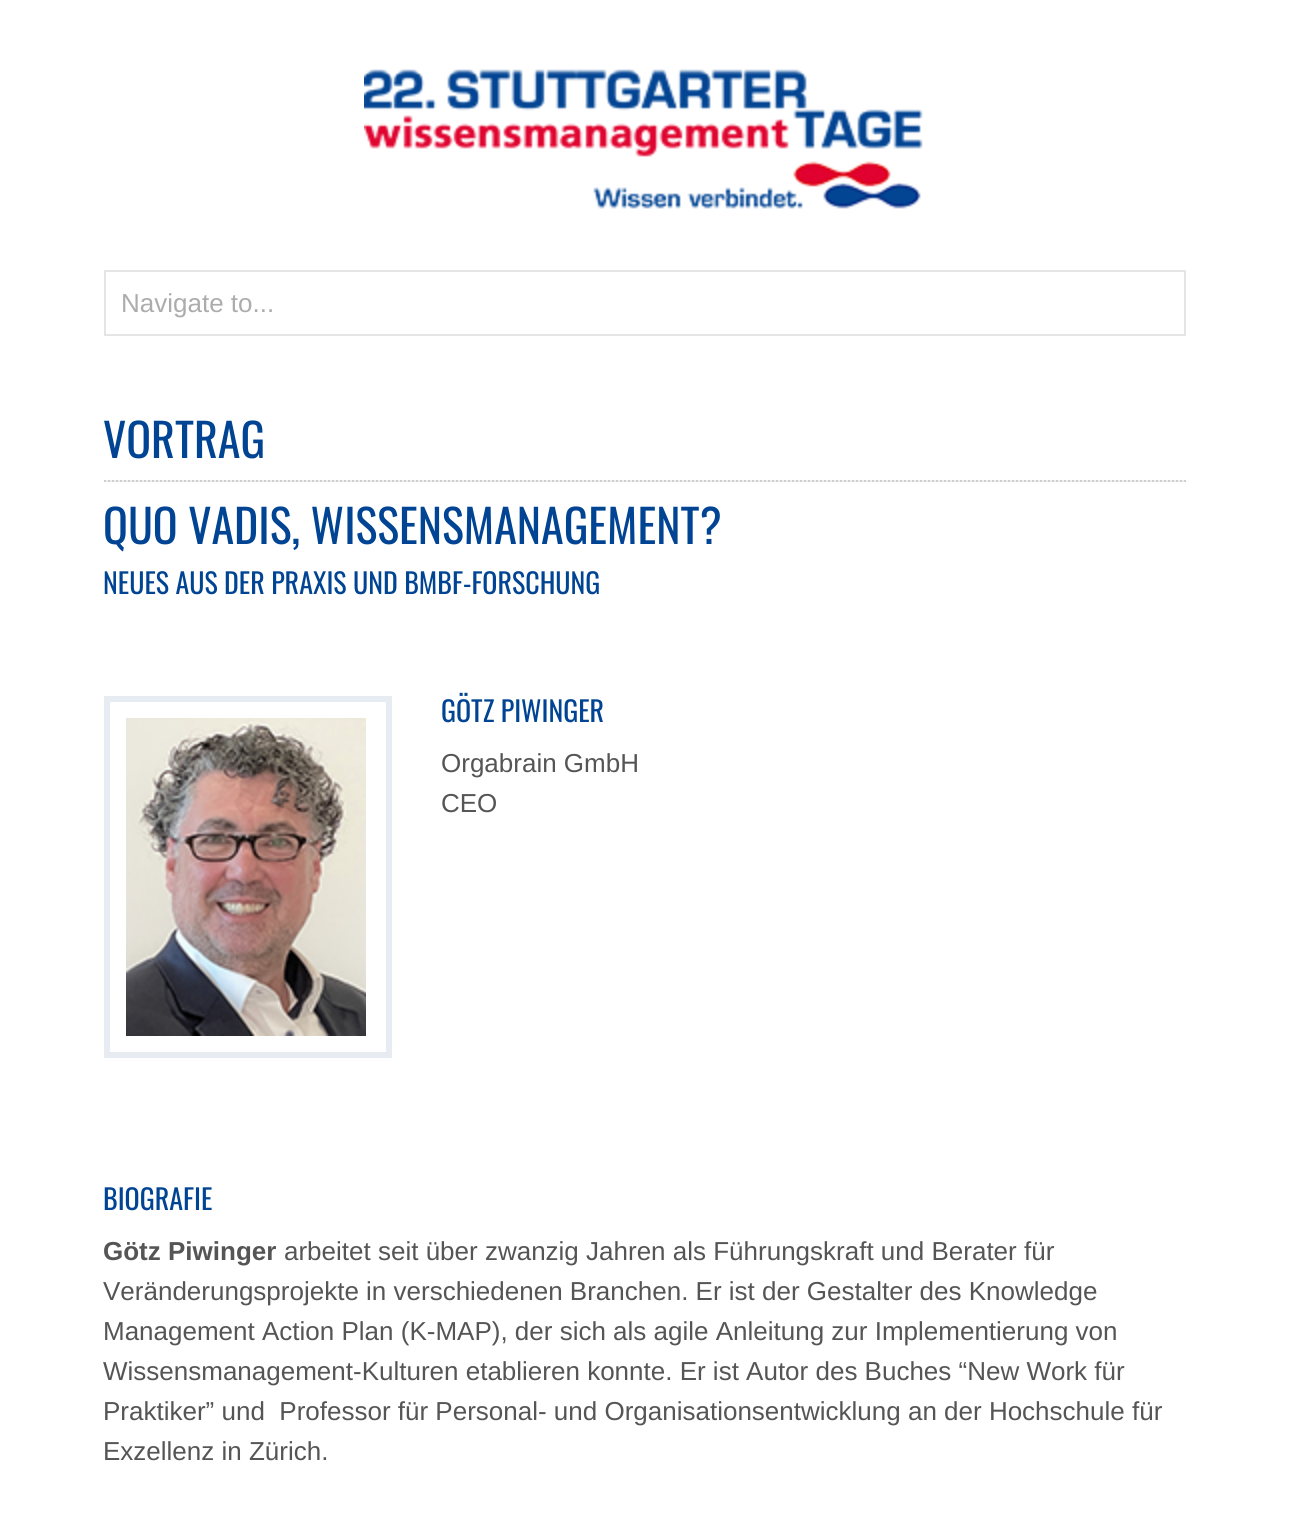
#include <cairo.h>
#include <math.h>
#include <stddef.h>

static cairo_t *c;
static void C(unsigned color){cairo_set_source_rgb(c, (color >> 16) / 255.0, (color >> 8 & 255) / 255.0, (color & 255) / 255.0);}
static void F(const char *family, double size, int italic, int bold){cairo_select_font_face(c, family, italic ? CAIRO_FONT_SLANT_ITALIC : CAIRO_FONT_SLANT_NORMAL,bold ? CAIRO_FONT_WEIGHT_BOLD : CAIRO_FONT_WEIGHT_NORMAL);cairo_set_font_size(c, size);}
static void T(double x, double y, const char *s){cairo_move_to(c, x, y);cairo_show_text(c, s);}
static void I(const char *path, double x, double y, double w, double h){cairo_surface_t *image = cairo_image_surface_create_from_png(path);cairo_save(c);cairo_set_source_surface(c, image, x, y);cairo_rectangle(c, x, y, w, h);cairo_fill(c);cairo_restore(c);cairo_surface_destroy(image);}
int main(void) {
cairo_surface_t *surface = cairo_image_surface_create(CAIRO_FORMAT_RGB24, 1290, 1529);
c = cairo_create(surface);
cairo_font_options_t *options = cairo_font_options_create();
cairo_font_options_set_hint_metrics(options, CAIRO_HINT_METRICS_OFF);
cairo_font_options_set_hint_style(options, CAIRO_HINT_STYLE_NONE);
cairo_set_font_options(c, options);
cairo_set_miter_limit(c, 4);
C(0xffffff);
cairo_paint(c);
I("1.png",364,69,559,140);
cairo_rectangle(c,105,271,1080,64);
C(0xe5e5e5);
cairo_stroke(c);
F("Liberation Sans",26,0,0);
C(0xacacac);
T(121,312,"Navigate to...");
I("2.png",104,480,1082,2);
F("Oswald",46,0,0);
C(0x004493);
T(103,458,"VORTRAG");
T(103,544,"QUO VADIS, WISSENSMANAGEMENT?");
F("Oswald",28,0,0);
T(103,594,"NEUES AUS DER PRAXIS UND BMBF-FORSCHUNG");
cairo_rectangle(c,107,699,282,356);
C(0xe7ecf2);
cairo_set_line_width(c,6);
cairo_stroke(c);
I("3.png",126,718,240,318);
C(0x004493);
T(441,722,"GÖTZ PIWINGER");
F("Liberation Sans",26,0,0);
C(0x555555);
T(441,772,"Orgabrain GmbH");
T(441,812,"CEO");
F("Oswald",28,0,0);
C(0x004493);
T(103,1210,"BIOGRAFIE");
F("Liberation Sans",26,0,1);
C(0x555555);
T(103,1260,"Götz Piwinger");
F("Liberation Sans",26,0,0);
T(284,1260,"arbeitet seit über zwanzig Jahren als Führungskraft und Berater für");
T(103,1300,"Veränderungsprojekte in verschiedenen Branchen. Er ist der Gestalter des Knowledge");
T(103,1340,"Management Action Plan (K-MAP), der sich als agile Anleitung zur Implementierung von");
T(103,1380,"Wissensmanagement-Kulturen etablieren konnte. Er ist Autor des Buches “New Work für");
T(103,1420,"Praktiker” und  Professor für Personal- und Organisationsentwicklung an der Hochschule für");
T(103,1460,"Exzellenz in Zürich.");
cairo_surface_write_to_png(surface, "o.png");
cairo_font_options_destroy(options);
cairo_destroy(c);
cairo_surface_destroy(surface);
return 0;
}
